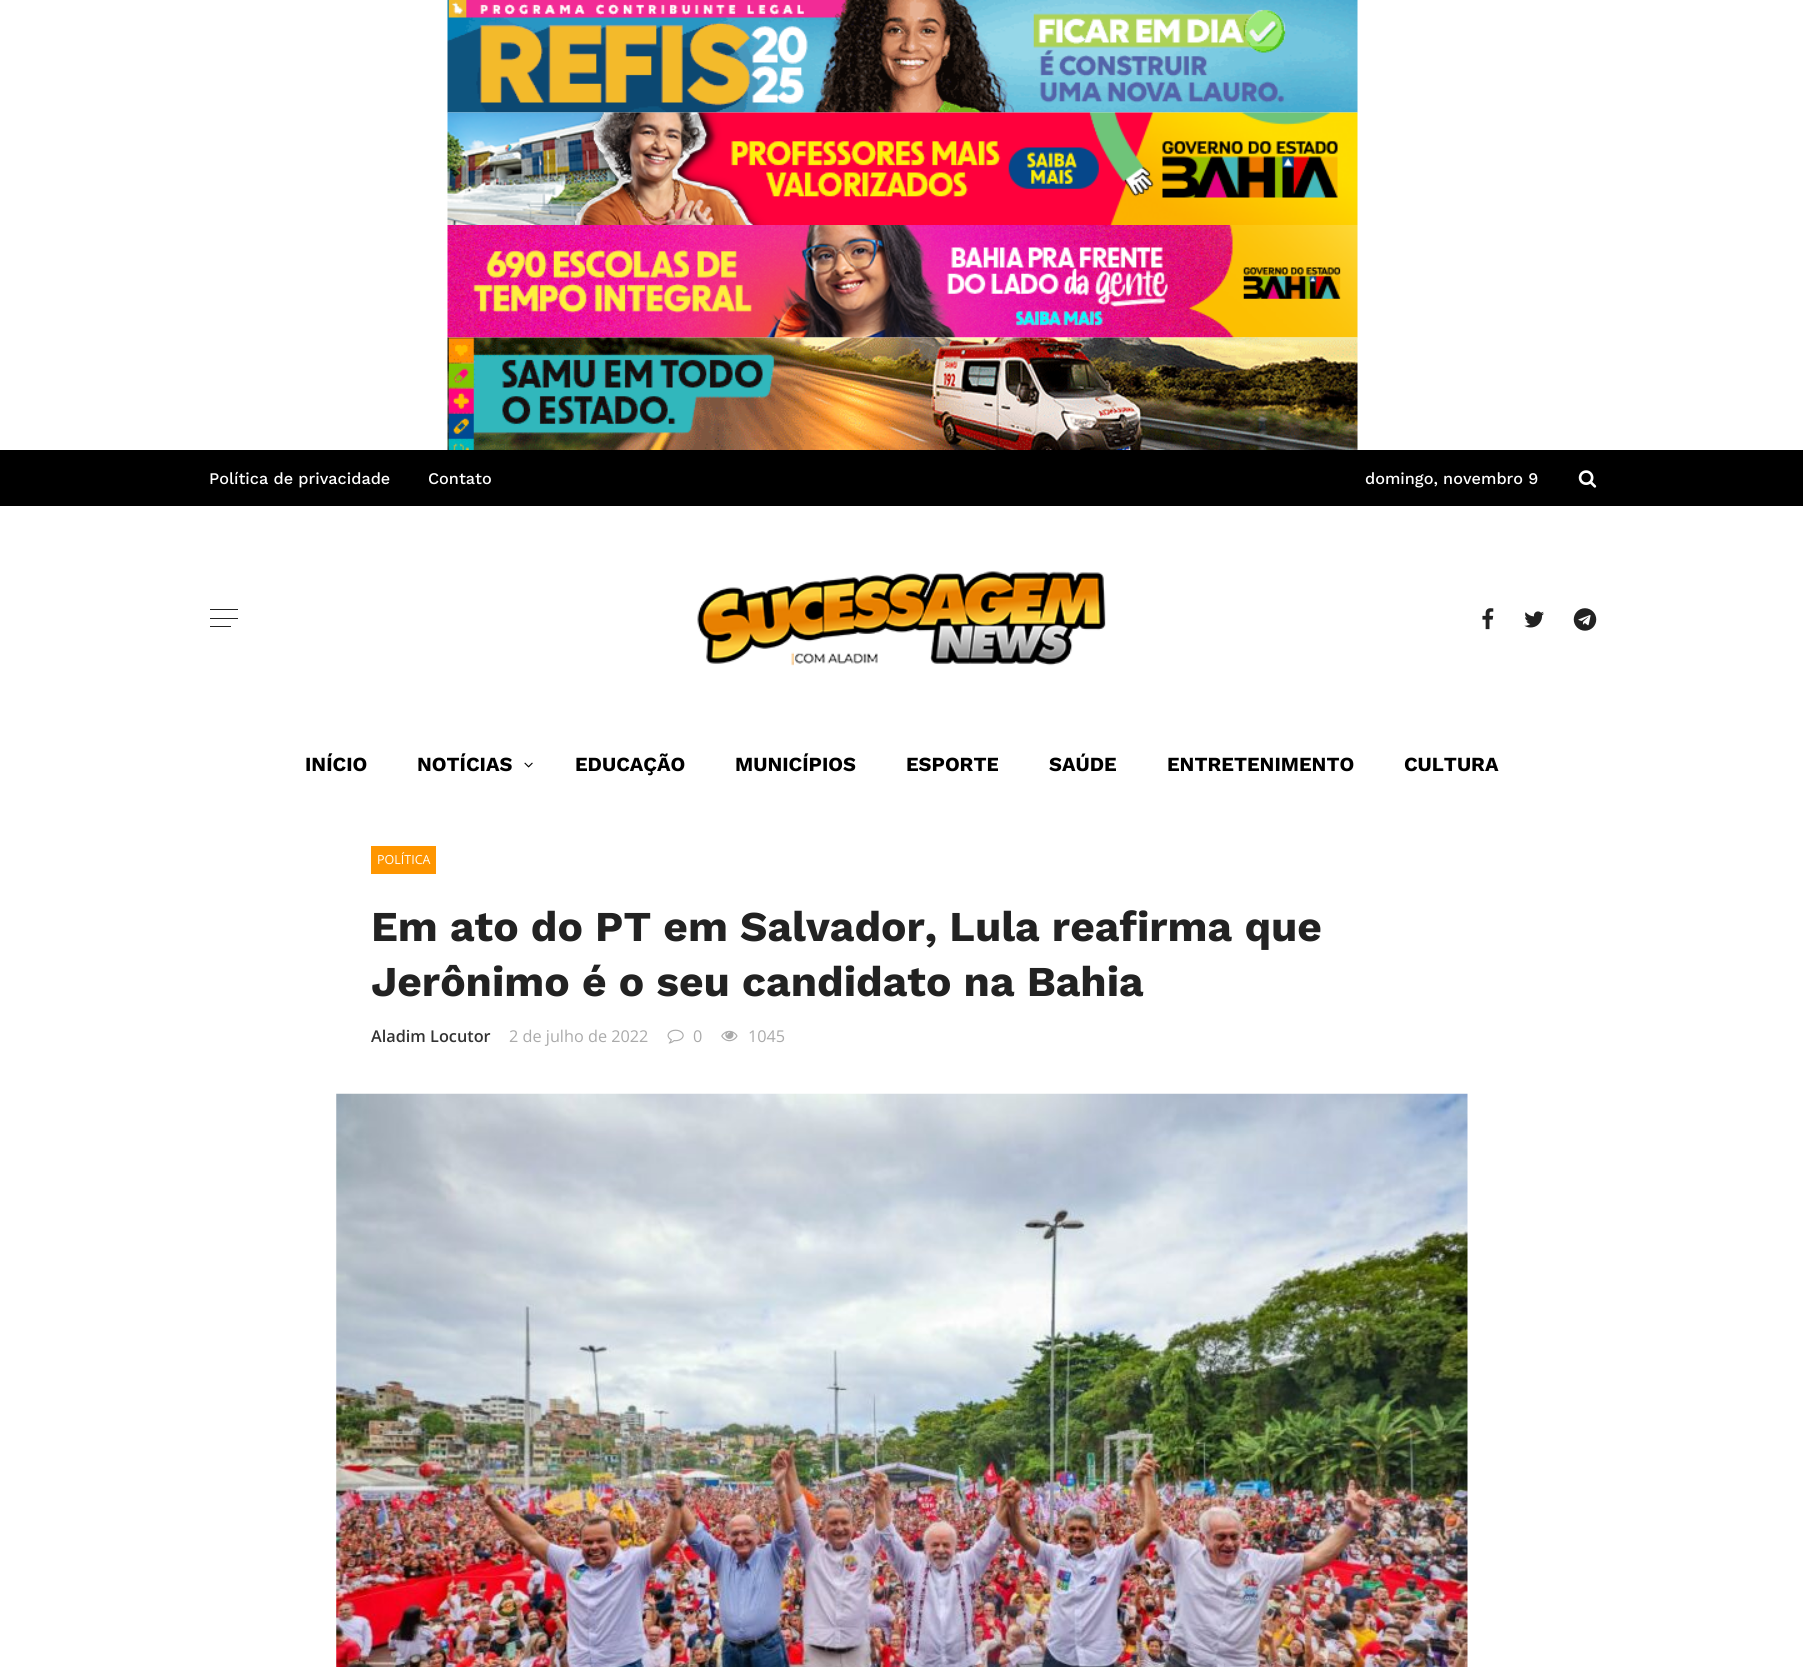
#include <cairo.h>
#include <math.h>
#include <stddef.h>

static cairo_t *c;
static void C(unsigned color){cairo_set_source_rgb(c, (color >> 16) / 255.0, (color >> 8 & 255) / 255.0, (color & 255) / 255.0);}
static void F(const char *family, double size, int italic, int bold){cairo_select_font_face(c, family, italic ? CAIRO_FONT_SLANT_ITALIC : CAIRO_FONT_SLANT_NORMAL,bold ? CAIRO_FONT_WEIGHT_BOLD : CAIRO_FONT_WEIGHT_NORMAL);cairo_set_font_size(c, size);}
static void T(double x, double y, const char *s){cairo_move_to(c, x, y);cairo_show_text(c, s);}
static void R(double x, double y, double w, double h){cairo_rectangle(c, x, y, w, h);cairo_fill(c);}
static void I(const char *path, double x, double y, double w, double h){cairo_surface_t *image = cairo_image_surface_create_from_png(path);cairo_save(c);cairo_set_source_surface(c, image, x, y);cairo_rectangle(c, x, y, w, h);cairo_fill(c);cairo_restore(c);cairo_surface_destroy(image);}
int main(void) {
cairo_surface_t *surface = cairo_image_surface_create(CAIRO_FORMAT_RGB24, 1803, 1667);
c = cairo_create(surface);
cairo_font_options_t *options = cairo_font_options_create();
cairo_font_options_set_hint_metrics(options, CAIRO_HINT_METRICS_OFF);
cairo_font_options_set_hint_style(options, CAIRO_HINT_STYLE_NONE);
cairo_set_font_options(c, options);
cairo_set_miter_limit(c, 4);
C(0xffffff);
cairo_paint(c);
I("1.png",447,0,911,113);
I("2.png",447,112,911,113);
I("3.png",447,225,911,113);
I("4.png",447,337,911,113);
C(0x000000);
R(0,450,1803,56);
F("Work Sans Medium",16.25,0,0);
C(0xffffff);
T(209,484,"Política de privacidade");
T(428,484,"Contato");
T(1365,484,"domingo, novembro 9");
I("5.png",1578,470,19,18);
C(0x222222);
R(210,609,28,1);
R(210,618,28,1);
R(210,626,21,1);
I("6.png",697,571,409,95);
I("7.png",1482,608,12,22);
I("8.png",1524,611,20,17);
I("9.png",1573,608,24,23);
F("Work Sans",20,0,1);
C(0x000000);
T(305,771,"INÍCIO");
T(417,771,"NOTÍCIAS");
I("10.png",524,762,9,6);
T(575,771,"EDUCAÇÃO");
T(735,771,"MUNICÍPIOS");
T(906,771,"ESPORTE");
T(1049,771,"SAÚDE");
T(1167,771,"ENTRETENIMENTO");
T(1404,771,"CULTURA");
C(0xff9600);
R(371,846,65,28);
F("Open Sans",12.5,0,0);
C(0xffffff);
T(377,864,"POLÍTICA");
F("Work Sans",42.5,0,1);
C(0x222222);
T(371,941,"Em ato do PT em Salvador, Lula reafirma que");
T(371,996,"Jerônimo é o seu candidato na Bahia");
F("Open Sans SemiBold",16.25,0,0);
C(0x333333);
T(371,1042,"Aladim Locutor");
F("Open Sans",16.25,0,0);
C(0xaaaaaa);
T(509,1042,"2 de julho de 2022");
I("11.png",667,1029,17,15);
T(693,1042,"0");
I("12.png",721,1030,17,12);
T(748,1042,"1045");
I("13.png",336,1093,1132,574);
cairo_surface_write_to_png(surface, "o.png");
cairo_font_options_destroy(options);
cairo_destroy(c);
cairo_surface_destroy(surface);
return 0;
}
